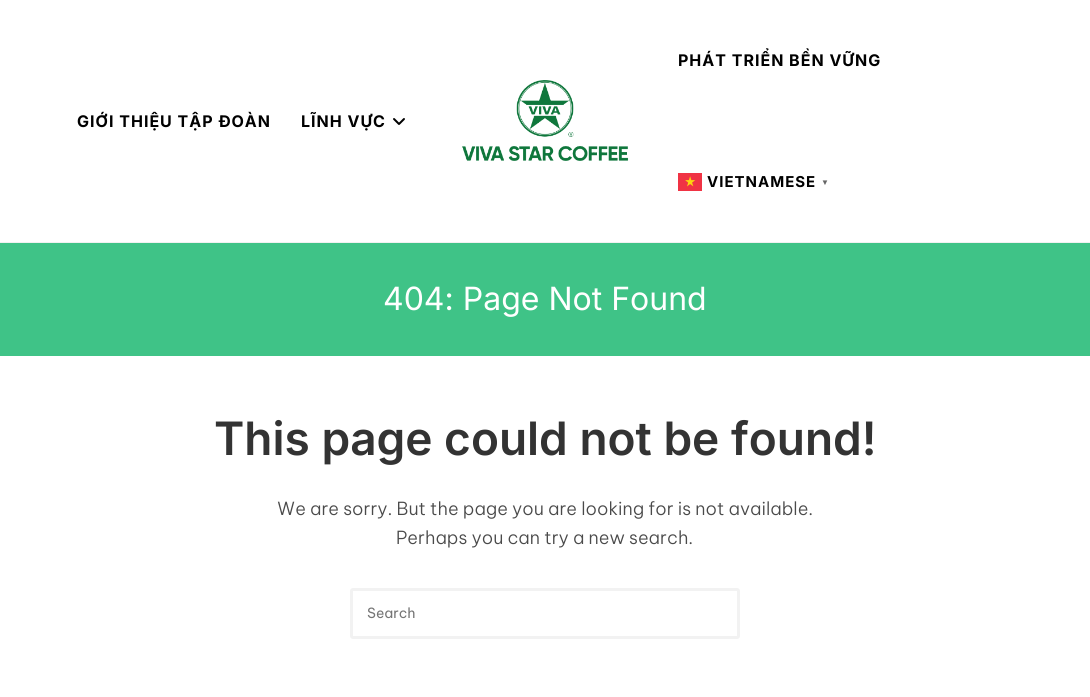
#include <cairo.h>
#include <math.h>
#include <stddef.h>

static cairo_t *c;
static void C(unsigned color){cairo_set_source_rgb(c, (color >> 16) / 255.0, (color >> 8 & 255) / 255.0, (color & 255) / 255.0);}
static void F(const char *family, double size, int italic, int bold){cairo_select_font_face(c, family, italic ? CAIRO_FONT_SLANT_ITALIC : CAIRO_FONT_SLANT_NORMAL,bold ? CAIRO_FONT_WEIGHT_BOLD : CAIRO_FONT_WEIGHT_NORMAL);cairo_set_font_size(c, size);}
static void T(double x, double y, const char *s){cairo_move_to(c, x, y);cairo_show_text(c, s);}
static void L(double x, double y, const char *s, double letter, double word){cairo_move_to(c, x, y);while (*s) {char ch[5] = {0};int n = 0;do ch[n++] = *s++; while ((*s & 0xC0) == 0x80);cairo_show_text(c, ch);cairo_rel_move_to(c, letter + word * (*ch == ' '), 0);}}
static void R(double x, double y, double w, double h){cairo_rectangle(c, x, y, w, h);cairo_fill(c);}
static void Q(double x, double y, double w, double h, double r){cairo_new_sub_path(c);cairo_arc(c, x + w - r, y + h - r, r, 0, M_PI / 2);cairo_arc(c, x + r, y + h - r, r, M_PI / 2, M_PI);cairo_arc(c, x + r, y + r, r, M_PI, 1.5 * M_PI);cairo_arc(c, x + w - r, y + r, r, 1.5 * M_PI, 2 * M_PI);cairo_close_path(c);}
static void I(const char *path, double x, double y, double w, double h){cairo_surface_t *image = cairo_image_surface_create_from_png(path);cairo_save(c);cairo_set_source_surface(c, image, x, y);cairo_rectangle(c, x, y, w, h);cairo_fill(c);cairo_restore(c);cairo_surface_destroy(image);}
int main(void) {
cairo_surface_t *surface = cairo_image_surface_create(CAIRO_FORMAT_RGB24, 1090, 697);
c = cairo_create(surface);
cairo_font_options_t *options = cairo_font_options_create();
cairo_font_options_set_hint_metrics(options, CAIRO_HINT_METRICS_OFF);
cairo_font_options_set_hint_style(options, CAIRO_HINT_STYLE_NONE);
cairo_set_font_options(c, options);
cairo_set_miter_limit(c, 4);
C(0xffffff);
cairo_paint(c);
C(0xf1f1f1);
R(0,242,1090,1);
F("Inter",16,0,1);
C(0x000000);
L(77,127,"GIỚI THIỆU TẬP ĐOÀN",1,0);
L(301,127,"LĨNH VỰC",1,0);
I("1.png",393,118,12,7);
I("2.png",462,80,167,81);
L(678,66,"PHÁT TRIỂN BỀN VỮNG",1,0);
I("3.png",678,173,24,18);
F("Inter",15,0,1);
L(707,187,"VIETNAMESE",1,0);
F("Liberation Serif",8,0,1);
C(0x666666);
L(821,185,"▼",1,0);
C(0x3fc387);
R(0,243,1090,113);
F("Inter",32,0,0);
C(0xffffff);
T(383,310,"404: Page Not Found");
F("Inter SemiBold",46,0,0);
C(0x333333);
T(214,455,"This page could not be found!");
F("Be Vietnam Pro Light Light",18,0,0);
C(0x4a4a4a);
T(277,515,"We are sorry. But the page you are looking for is not available.");
T(396,544,"Perhaps you can try a new search.");
Q(351.5,589.5,387,48,1.5);
C(0xf2f2f2);
cairo_set_line_width(c,3);
cairo_stroke(c);
F("Be Vietnam Pro",14,0,0);
C(0x757575);
T(367,618,"Search");
cairo_surface_write_to_png(surface, "o.png");
cairo_font_options_destroy(options);
cairo_destroy(c);
cairo_surface_destroy(surface);
return 0;
}
